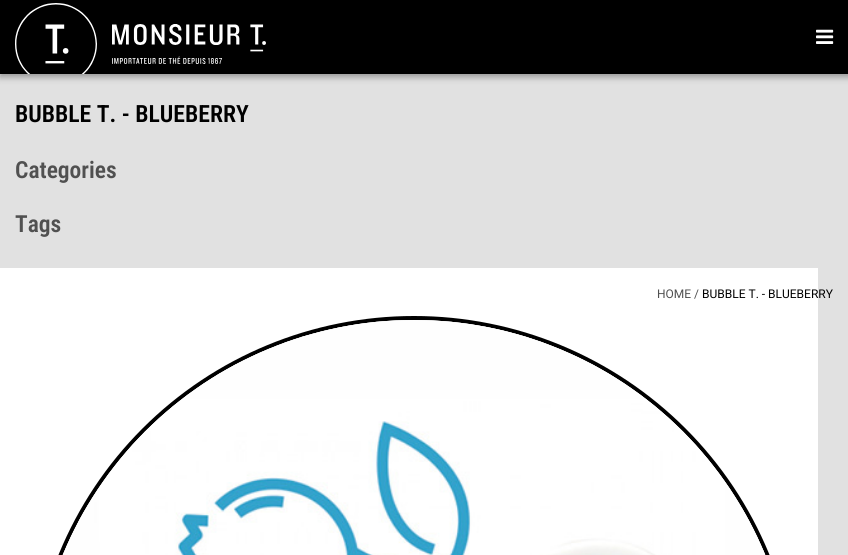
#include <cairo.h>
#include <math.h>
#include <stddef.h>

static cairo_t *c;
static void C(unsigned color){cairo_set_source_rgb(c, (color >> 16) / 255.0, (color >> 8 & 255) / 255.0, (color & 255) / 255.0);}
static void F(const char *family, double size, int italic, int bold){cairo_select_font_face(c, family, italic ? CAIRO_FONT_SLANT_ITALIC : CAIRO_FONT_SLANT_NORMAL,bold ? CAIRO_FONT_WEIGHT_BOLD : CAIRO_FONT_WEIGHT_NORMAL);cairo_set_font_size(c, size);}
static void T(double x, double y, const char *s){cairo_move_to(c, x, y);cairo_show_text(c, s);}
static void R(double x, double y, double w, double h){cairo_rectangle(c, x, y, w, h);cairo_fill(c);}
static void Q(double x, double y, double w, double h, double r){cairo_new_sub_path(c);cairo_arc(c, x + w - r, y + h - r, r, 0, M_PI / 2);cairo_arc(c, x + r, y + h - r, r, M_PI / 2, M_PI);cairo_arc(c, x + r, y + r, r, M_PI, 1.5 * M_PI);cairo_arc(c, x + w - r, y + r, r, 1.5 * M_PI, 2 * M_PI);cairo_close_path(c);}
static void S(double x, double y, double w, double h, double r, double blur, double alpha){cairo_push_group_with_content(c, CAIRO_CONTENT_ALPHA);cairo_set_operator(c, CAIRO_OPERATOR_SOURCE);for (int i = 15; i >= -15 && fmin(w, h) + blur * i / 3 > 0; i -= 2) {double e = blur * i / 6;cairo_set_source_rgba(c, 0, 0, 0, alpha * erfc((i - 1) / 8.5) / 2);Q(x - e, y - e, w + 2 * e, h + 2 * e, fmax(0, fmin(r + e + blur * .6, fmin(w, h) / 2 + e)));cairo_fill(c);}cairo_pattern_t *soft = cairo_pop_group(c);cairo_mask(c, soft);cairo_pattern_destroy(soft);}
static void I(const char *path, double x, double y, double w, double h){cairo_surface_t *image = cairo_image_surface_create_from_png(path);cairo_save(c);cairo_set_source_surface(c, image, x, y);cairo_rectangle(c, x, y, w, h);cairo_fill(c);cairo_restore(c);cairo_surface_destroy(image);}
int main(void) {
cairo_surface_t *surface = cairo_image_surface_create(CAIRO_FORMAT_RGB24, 848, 555);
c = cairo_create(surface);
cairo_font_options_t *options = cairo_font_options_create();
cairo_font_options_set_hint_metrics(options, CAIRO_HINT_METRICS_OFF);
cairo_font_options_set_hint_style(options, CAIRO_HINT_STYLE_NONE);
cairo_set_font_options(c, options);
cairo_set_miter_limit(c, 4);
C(0xe1e1e1);
cairo_paint(c);
C(0x000000);
S(0,-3,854,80,0,3.5,.35);
C(0x000000);
R(0,0,848,74);
I("1.png",15,3,82,71);
I("2.png",112,24,154,40);
I("3.png",816,29,18,15);
F("Roboto Condensed SemiBold",23.75,0,0);
T(15,122,"BUBBLE T. - BLUEBERRY");
F("Roboto Condensed SemiBold",23.5,0,0);
C(0x505050);
T(15,178,"Categories");
T(15,232,"Tags");
C(0xffffff);
R(0,268,818,287);
F("Roboto",12,0,0);
C(0x505050);
T(657,298,"HOME /");
C(0x000000);
T(702,298,"BUBBLE T. - BLUEBERRY");
Q(32,318,764,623,382);
cairo_set_line_width(c,4);
cairo_stroke(c);
C(0xefefef);
Q(34,320,760,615,380);
cairo_fill(c);
I("4.png",62,320,704,235);
cairo_surface_write_to_png(surface, "o.png");
cairo_font_options_destroy(options);
cairo_destroy(c);
cairo_surface_destroy(surface);
return 0;
}
